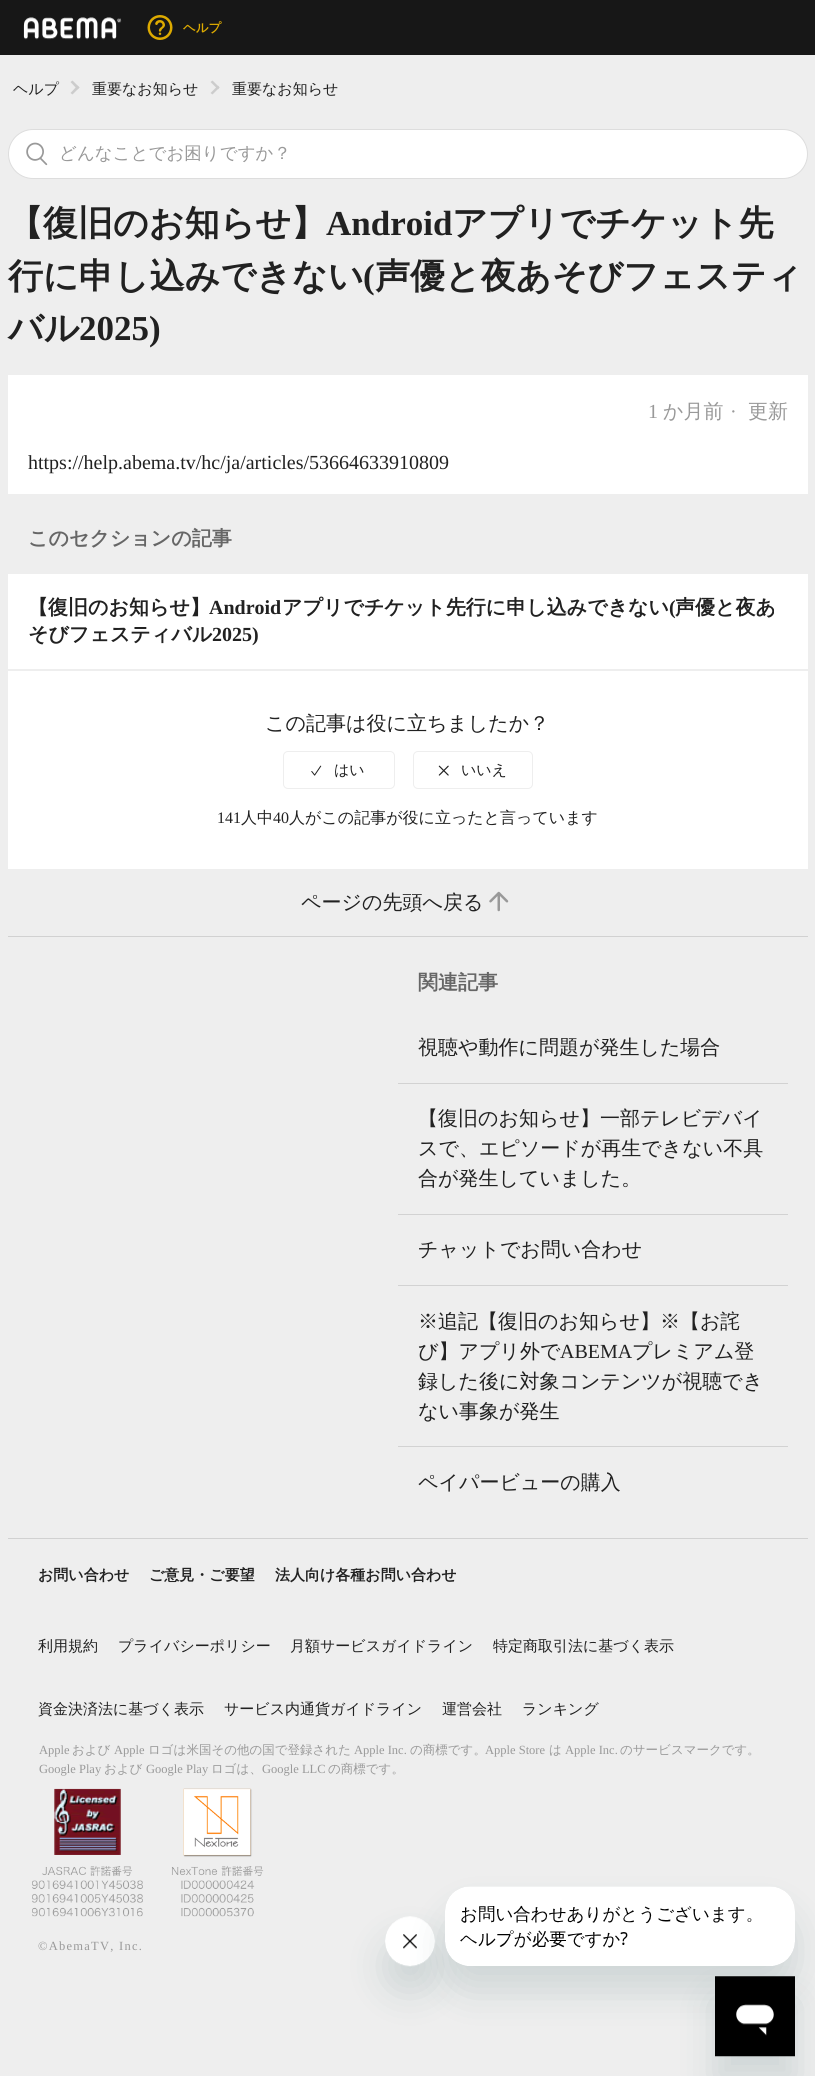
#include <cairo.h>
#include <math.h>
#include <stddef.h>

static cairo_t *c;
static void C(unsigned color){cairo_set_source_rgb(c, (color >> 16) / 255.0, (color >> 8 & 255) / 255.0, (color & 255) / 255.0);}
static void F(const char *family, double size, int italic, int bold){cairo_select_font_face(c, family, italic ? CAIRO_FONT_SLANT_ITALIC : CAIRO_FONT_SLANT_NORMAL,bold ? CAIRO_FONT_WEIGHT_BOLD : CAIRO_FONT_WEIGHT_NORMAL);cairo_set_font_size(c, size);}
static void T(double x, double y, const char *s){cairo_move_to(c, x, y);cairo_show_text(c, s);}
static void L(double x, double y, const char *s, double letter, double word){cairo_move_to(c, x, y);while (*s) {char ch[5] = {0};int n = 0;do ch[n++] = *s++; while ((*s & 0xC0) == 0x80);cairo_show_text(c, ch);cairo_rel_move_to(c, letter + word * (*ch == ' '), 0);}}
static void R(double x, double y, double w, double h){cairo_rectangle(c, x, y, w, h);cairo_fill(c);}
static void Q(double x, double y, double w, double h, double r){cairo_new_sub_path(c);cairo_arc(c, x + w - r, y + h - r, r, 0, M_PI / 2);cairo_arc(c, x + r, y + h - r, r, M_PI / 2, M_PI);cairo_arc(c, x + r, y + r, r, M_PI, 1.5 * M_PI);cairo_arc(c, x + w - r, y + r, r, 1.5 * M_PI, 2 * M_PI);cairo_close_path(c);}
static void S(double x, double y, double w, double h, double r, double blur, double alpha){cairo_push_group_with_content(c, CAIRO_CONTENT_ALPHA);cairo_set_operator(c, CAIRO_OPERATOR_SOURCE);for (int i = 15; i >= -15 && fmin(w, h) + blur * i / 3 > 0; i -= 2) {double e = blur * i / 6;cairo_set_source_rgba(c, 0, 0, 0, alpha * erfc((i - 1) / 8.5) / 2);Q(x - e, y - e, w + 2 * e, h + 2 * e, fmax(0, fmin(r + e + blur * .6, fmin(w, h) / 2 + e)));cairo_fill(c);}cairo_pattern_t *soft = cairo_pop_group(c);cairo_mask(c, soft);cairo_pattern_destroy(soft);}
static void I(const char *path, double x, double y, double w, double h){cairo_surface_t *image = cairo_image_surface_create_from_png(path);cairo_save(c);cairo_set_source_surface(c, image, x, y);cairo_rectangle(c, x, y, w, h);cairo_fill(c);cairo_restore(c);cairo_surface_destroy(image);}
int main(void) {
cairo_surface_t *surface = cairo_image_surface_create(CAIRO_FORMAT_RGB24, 815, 2076);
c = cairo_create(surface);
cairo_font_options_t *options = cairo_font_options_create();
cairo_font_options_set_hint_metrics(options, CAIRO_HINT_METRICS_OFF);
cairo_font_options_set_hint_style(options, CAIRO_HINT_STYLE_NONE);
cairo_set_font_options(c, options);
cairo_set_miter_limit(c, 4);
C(0xeeeeee);
cairo_paint(c);
C(0x171717);
R(0,0,815,55);
I("1.png",23,17,99,23);
I("2.png",147,15,26,25);
F("WenQuanYi Zen Hei",12.5,0,1);
C(0xddaa00);
T(183,32,"ヘルプ");
F("WenQuanYi Zen Hei Medium",15,0,0);
C(0x212121);
T(13,94,"ヘルプ");
C(0xcccccc);
cairo_new_path(c);
cairo_move_to(c,72.5,80.5);
cairo_line_to(c,79.5,87.5);
cairo_line_to(c,77.5,89.5);
cairo_line_to(c,70.5,82);
cairo_close_path(c);
cairo_fill(c);
cairo_new_path(c);
cairo_move_to(c,77.5,85.5);
cairo_line_to(c,79.5,87.5);
cairo_line_to(c,72.5,94.5);
cairo_line_to(c,70.5,93);
cairo_close_path(c);
cairo_fill(c);
C(0x212121);
T(92,94,"重要なお知らせ");
C(0xcccccc);
cairo_new_path(c);
cairo_move_to(c,212.5,80.5);
cairo_line_to(c,219.5,87.5);
cairo_line_to(c,218,89.5);
cairo_line_to(c,210.5,82);
cairo_close_path(c);
cairo_fill(c);
cairo_new_path(c);
cairo_move_to(c,218,85.5);
cairo_line_to(c,219.5,87.5);
cairo_line_to(c,212.5,94.5);
cairo_line_to(c,210.5,93);
cairo_close_path(c);
cairo_fill(c);
C(0x212121);
T(232,94,"重要なお知らせ");
C(0xffffff);
Q(8.5,129.5,799,49,24.5);
cairo_fill_preserve(c);
C(0xdddddd);
cairo_set_line_width(c,1);
cairo_stroke(c);
I("3.png",26,142,22,24);
F("WenQuanYi Zen Hei Medium",17.5,0,0);
C(0x999999);
T(59,159,"どんなことでお困りですか？");
C(0xffffff);
R(8,375,800,494);
F("WenQuanYi Zen Hei",35,0,1);
C(0x212121);
T(8,235,"【復旧のお知らせ】");
F("Liberation Serif",35,0,1);
T(326,235,"Android");
F("WenQuanYi Zen Hei",35,0,1);
T(452,235,"アプリでチケット先");
T(8,288,"行に申し込みできない");
F("Liberation Serif",35,0,1);
T(363,288,"(");
F("WenQuanYi Zen Hei",35,0,1);
T(375,288,"声優と夜あそびフェスティ");
T(8,340,"バル");
F("Liberation Serif",35,0,1);
T(79,340,"2025)");
F("Liberation Serif",20,0,0);
C(0x999999);
T(648,418,"1");
F("WenQuanYi Zen Hei Medium",20,0,0);
T(663,418,"か月前");
F("Liberation Serif",20,0,0);
T(730,418,"·");
F("WenQuanYi Zen Hei Medium",20,0,0);
T(748,418,"更新");
F("Liberation Serif",20,0,0);
C(0x212121);
T(28,469,"https://help.abema.tv/hc/ja/articles/53664633910809");
C(0xeeeeee);
R(8,494,800,80);
F("WenQuanYi Zen Hei",20,0,1);
C(0x666666);
T(28,545,"このセクションの記事");
C(0xeeeeee);
R(8,669,800,2);
C(0x212121);
T(28,614,"【復旧のお知らせ】");
F("Liberation Serif",20,0,1);
T(209,614,"Android");
F("WenQuanYi Zen Hei",20,0,1);
T(282,614,"アプリでチケット先行に申し込みできない");
F("Liberation Serif",20,0,1);
T(669,614,"(");
F("WenQuanYi Zen Hei",20,0,1);
T(675,614,"声優と夜あ");
T(28,641,"そびフェスティバル");
F("Liberation Serif",20,0,1);
T(212,641,"2025)");
F("WenQuanYi Zen Hei Medium",20,0,0);
T(265,730,"この記事は役に立ちましたか？");
Q(283.5,751.5,111,37,4.5);
C(0xeeeeee);
cairo_stroke(c);
I("4.png",311,765,11,11);
F("WenQuanYi Zen Hei Medium",15,0,0);
C(0x212121);
T(334,775,"はい");
Q(413.5,751.5,119,37,4.5);
C(0xeeeeee);
cairo_stroke(c);
I("5.png",438,765,11,11);
C(0x212121);
T(461,775,"いいえ");
F("Liberation Serif",16,0,0);
T(217,823,"141");
F("WenQuanYi Zen Hei Medium",16,0,0);
T(241,823,"人中");
F("Liberation Serif",16,0,0);
T(273,823,"40");
F("WenQuanYi Zen Hei Medium",16,0,0);
T(289,823,"人がこの記事が役に立ったと言っています");
F("WenQuanYi Zen Hei Medium",20,0,0);
T(301,909,"ページの先頭へ戻る");
I("6.png",489,891,20,21);
C(0xd1d1d1);
R(8,936,800,1);
F("WenQuanYi Zen Hei",20,0,1);
C(0x666666);
T(418,989,"関連記事");
C(0xd2d2d2);
R(398,1083,390,1);
F("WenQuanYi Zen Hei Medium",20,0,0);
C(0x212121);
T(418,1054,"視聴や動作に問題が発生した場合");
C(0xd2d2d2);
R(398,1214,390,1);
C(0x212121);
T(418,1125,"【復旧のお知らせ】一部テレビデバイ");
T(418,1155,"スで、エピソードが再生できない不具");
T(418,1185,"合が発生していました。");
C(0xd2d2d2);
R(398,1285,390,1);
C(0x212121);
T(418,1256,"チャットでお問い合わせ");
C(0xd2d2d2);
R(398,1446,390,1);
C(0x212121);
T(418,1328,"※追記【復旧のお知らせ】※【お詫");
T(418,1358,"び】アプリ外で");
F("Liberation Serif",20,0,0);
T(560,1358,"ABEMA");
F("WenQuanYi Zen Hei Medium",20,0,0);
T(632,1358,"プレミアム登");
T(418,1388,"録した後に対象コンテンツが視聴でき");
T(418,1418,"ない事象が発生");
T(418,1489,"ペイパービューの購入");
C(0xd1d1d1);
R(8,1538,800,1);
F("WenQuanYi Zen Hei",15,0,1);
C(0x212121);
T(38,1580,"お問い合わせ");
T(149,1580,"ご意見・ご要望");
T(275,1580,"法人向け各種お問い合わせ");
F("WenQuanYi Zen Hei Medium",15,0,0);
T(38,1651,"利用規約");
T(118,1651,"プライバシーポリシー");
T(290,1651,"月額サービスガイドライン");
T(493,1651,"特定商取引法に基づく表示");
T(38,1714,"資金決済法に基づく表示");
T(224,1714,"サービス内通貨ガイドライン");
T(442,1714,"運営会社");
T(522,1714,"ランキング");
F("Liberation Serif",12.5,0,0);
C(0x999999);
T(39,1754,"Apple");
F("WenQuanYi Zen Hei Medium",12.5,0,0);
T(72,1754,"および");
F("Liberation Serif",12.5,0,0);
T(114,1754,"Apple");
F("WenQuanYi Zen Hei Medium",12.5,0,0);
T(148,1754,"ロゴは米国その他の国で登録された");
F("Liberation Serif",12.5,0,0);
T(354,1754,"Apple Inc.");
F("WenQuanYi Zen Hei Medium",12.5,0,0);
T(410,1754,"の商標です。");
F("Liberation Serif",12.5,0,0);
T(485,1754,"Apple Store");
F("WenQuanYi Zen Hei Medium",12.5,0,0);
T(549,1754,"は");
F("Liberation Serif",12.5,0,0);
T(565,1754,"Apple Inc.");
F("WenQuanYi Zen Hei Medium",12.5,0,0);
T(620,1754,"のサービスマークです。");
F("Liberation Serif",12.5,0,0);
T(39,1773,"Google Play");
F("WenQuanYi Zen Hei Medium",12.5,0,0);
T(104,1773,"および");
F("Liberation Serif",12.5,0,0);
T(146,1773,"Google Play");
F("WenQuanYi Zen Hei Medium",12.5,0,0);
T(211,1773,"ロゴは、");
F("Liberation Serif",12.5,0,0);
T(262,1773,"Google LLC");
F("WenQuanYi Zen Hei Medium",12.5,0,0);
T(328,1773,"の商標です。");
I("7.png",32,1788,232,129);
F("Liberation Serif",12.5,0,0);
L(38,1950,"©AbemaTV, Inc.",1.25,0);
C(0x17494d);
S(385,1941,50,50,25,19,.15);
I("9.png",385,1916,50,51);
S(445,1911,350,80,25,19,.15);
I("8.png",445,1886,350,80);
S(715,2001,80,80,0,19,.15);
I("10.png",715,1976,80,81);
cairo_surface_write_to_png(surface, "o.png");
cairo_font_options_destroy(options);
cairo_destroy(c);
cairo_surface_destroy(surface);
return 0;
}
